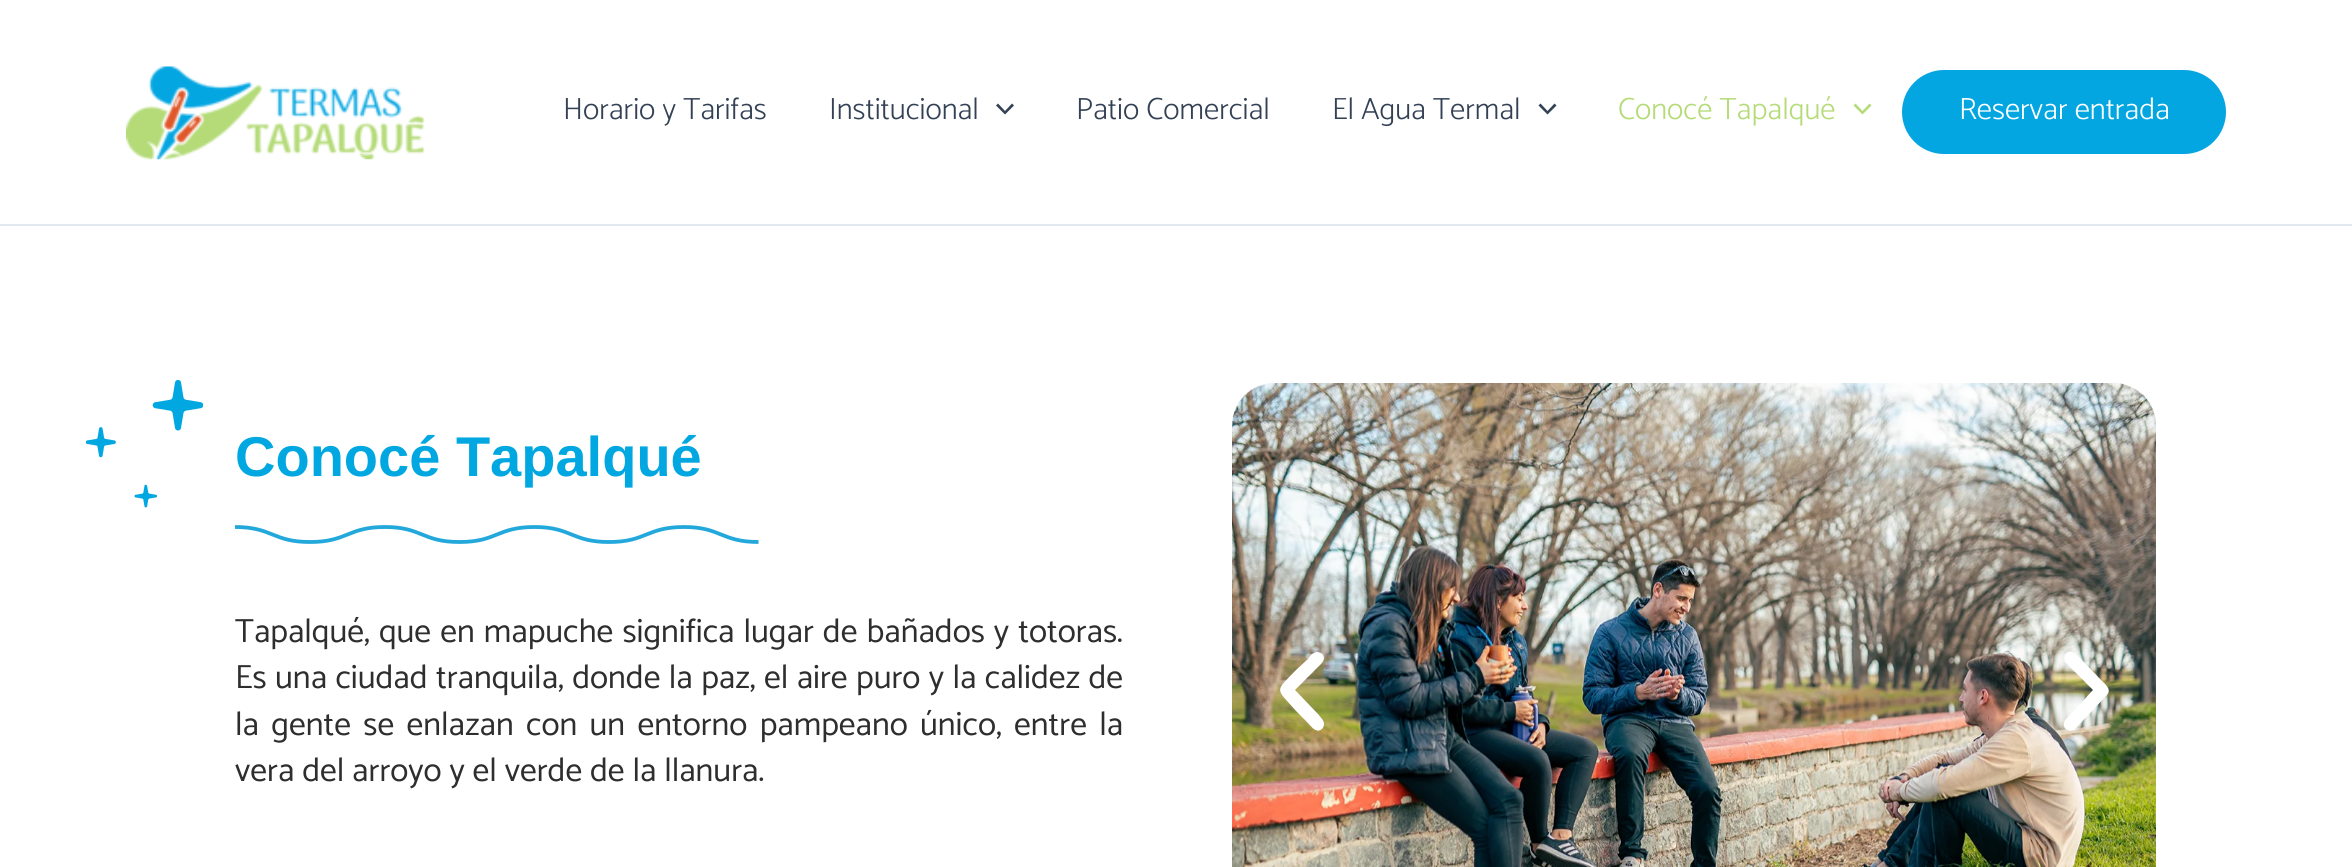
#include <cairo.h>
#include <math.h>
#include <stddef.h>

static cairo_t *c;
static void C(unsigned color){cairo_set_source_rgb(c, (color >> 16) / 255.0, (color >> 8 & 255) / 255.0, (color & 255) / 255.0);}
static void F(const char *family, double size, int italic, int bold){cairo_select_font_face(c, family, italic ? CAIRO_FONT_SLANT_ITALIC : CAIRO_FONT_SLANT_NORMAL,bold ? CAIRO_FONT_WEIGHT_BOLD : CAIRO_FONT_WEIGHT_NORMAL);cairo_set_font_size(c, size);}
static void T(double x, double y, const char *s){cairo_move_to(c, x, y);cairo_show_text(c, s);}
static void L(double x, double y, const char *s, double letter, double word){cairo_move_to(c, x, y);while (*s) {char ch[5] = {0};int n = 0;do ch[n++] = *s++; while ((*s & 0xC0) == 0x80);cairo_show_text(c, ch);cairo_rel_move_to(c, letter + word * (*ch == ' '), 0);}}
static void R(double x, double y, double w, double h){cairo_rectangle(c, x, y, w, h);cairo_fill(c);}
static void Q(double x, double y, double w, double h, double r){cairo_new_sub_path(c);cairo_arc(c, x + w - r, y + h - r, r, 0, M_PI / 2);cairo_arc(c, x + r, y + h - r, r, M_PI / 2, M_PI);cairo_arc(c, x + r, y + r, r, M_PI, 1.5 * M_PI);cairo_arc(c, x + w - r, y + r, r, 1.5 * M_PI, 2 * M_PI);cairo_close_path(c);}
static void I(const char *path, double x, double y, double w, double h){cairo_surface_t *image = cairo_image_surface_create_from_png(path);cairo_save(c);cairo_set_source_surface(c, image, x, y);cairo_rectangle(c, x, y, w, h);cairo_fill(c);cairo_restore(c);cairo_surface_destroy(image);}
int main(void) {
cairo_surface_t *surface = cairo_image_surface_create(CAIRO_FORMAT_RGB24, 2352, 867);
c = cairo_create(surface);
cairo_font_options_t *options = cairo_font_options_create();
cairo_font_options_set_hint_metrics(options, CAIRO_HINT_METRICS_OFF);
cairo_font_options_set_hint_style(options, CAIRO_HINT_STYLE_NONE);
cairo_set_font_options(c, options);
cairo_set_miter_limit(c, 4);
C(0xffffff);
cairo_paint(c);
C(0xe2e8f0);
R(0,224,2352,2);
I("1.png",126,66,298,94);
F("Catamaran Light",30.75,0,0);
C(0x334155);
T(563,119,"Horario y Tarifas");
T(829,119,"Institucional");
cairo_new_path(c);
cairo_move_to(c,996,105.5);
cairo_line_to(c,1005,114.5);
cairo_line_to(c,1014,105.5);
cairo_line_to(c,1012,103.5);
cairo_line_to(c,1005,111);
cairo_line_to(c,998,103.5);
cairo_close_path(c);
cairo_fill(c);
T(1076,119,"Patio Comercial");
T(1332,119,"El Agua Termal");
cairo_new_path(c);
cairo_move_to(c,1538.5,105.5);
cairo_line_to(c,1547.5,114.5);
cairo_line_to(c,1556.5,105.5);
cairo_line_to(c,1554.5,103.5);
cairo_line_to(c,1547.5,111);
cairo_line_to(c,1540.5,103.5);
cairo_close_path(c);
cairo_fill(c);
C(0xb4db78);
T(1618,119,"Conocé Tapalqué");
cairo_new_path(c);
cairo_move_to(c,1853.5,105.5);
cairo_line_to(c,1862.5,114.5);
cairo_line_to(c,1871.5,105.5);
cairo_line_to(c,1869.5,103.5);
cairo_line_to(c,1862.5,111);
cairo_line_to(c,1855.5,103.5);
cairo_close_path(c);
cairo_fill(c);
C(0x04a6e1);
Q(1902,70,324,84,42);
cairo_fill(c);
C(0xffffff);
T(1959,119,"Reservar entrada");
I("2.png",86,380,117,128);
F("Liberation Sans",56,0,1);
C(0x00a7e1);
T(235,476,"Conocé Tapalqué");
cairo_new_path(c);
cairo_move_to(c,758.5,542);
cairo_curve_to(c,721,542,721,527,684,527);
cairo_curve_to(c,646.5,527,646.5,542,609,542);
cairo_curve_to(c,571.5,542,571.5,527,534.5,527);
cairo_curve_to(c,497,527,497,542,459.5,542);
cairo_curve_to(c,422,542,422,527,385,527);
cairo_curve_to(c,347.5,527,347.5,542,310,542);
cairo_curve_to(c,272.5,542,272.5,527,235,527);
C(0x23a8dc);
cairo_set_line_width(c,3.8);
cairo_stroke(c);
F("Catamaran",33.6,0,0);
C(0x2e2e2e);
L(235,642,"Tapalqué, que en mapuche significa lugar de bañados y totoras.",0,1.25);
L(235,688,"Es una ciudad tranquila, donde la paz, el aire puro y la calidez de",0,.6);
L(235,735,"la gente se enlazan con un entorno pampeano único, entre la",0,4.5);
T(235,781,"vera del arroyo y el verde de la llanura.");
I("3.png",1232,383,924,484);
C(0xffffff);
cairo_new_path(c);
cairo_move_to(c,1317,652);
cairo_curve_to(c,1313,652,1310,656,1308,659);
cairo_line_to(c,1297,669);
cairo_curve_to(c,1274,693,1275,687,1297,712);
cairo_line_to(c,1308,723);
cairo_curve_to(c,1311,726,1316,734,1322,729);
cairo_curve_to(c,1323,728,1324,726,1324,724);
cairo_curve_to(c,1324,720,1320,717,1318,714);
cairo_line_to(c,1295,690);
cairo_line_to(c,1318,667);
cairo_curve_to(c,1321,664,1326,660,1323,655);
cairo_curve_to(c,1322,653,1319,652,1317,652);
cairo_close_path(c);
cairo_fill(c);
cairo_new_path(c);
cairo_move_to(c,2107,695);
cairo_curve_to(c,2112,689,2105,684,2101,680);
cairo_line_to(c,2081,659);
cairo_curve_to(c,2077,655,2070,647,2065,655);
cairo_curve_to(c,2064,657,2064,660,2065,662);
cairo_line_to(c,2093,690);
cairo_line_to(c,2070,715);
cairo_curve_to(c,2067,718,2064,720,2064,724);
cairo_curve_to(c,2063,729,2069,732,2074,730);
cairo_close_path(c);
cairo_fill(c);
cairo_surface_write_to_png(surface, "o.png");
cairo_font_options_destroy(options);
cairo_destroy(c);
cairo_surface_destroy(surface);
return 0;
}
